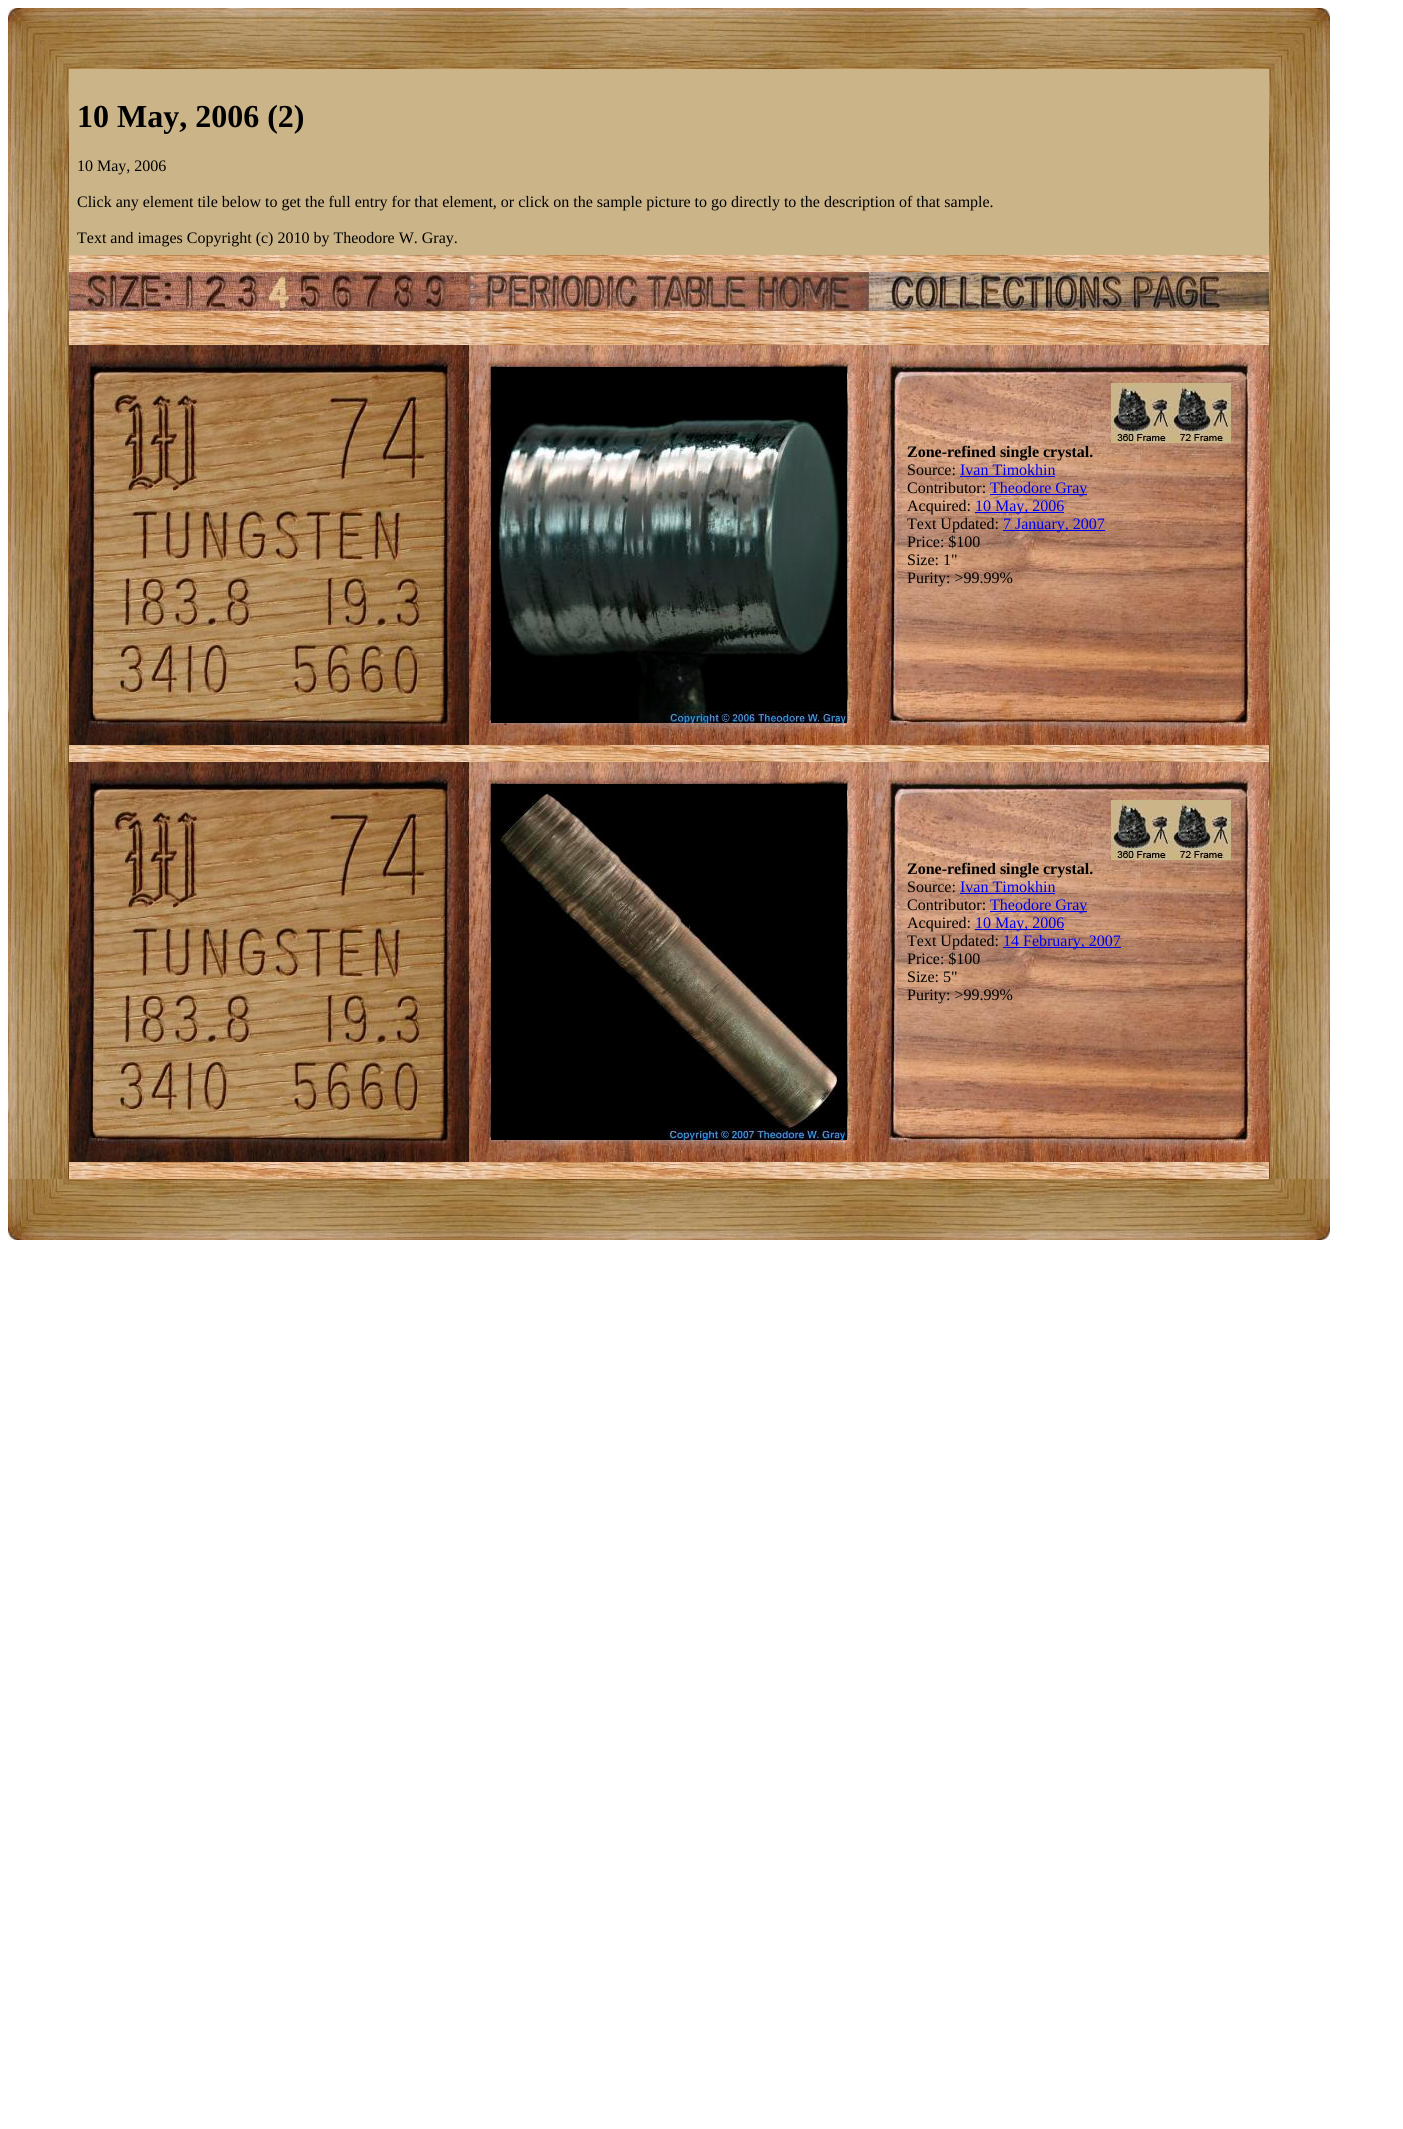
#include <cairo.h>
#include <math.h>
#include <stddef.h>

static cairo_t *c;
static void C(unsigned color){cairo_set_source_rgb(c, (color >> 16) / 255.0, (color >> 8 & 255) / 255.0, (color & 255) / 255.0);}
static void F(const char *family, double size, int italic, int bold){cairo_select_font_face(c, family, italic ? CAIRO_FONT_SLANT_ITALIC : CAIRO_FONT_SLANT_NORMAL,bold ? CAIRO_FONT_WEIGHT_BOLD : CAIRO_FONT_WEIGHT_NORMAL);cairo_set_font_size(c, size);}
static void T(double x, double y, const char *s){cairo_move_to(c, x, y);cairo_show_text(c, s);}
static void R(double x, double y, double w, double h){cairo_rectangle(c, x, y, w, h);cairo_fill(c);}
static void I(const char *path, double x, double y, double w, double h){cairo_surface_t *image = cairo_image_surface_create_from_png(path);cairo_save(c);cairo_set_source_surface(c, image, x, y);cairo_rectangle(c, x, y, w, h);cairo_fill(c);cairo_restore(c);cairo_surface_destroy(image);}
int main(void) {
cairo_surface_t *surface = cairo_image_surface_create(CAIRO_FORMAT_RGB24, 1403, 2129);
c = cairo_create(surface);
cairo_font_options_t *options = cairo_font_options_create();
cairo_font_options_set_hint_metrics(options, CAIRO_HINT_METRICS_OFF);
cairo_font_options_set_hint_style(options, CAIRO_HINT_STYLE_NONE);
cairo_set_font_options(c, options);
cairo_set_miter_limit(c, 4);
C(0xffffff);
cairo_paint(c);
I("1.png",8,8,61,61);
I("2.png",69,8,1200,61);
I("3.png",1269,8,61,61);
I("4.png",8,69,61,1110);
C(0xcbb488);
R(69,69,1200,186);
F("Liberation Serif",32,0,1);
C(0x000000);
T(77,127,"10 May, 2006 (2)");
F("Liberation Serif",16,0,0);
T(77,171,"10 May, 2006");
T(77,207,"Click any element tile below to get the full entry for that element, or click on the sample picture to go directly to the description of that sample.");
T(77,243,"Text and images Copyright (c) 2010 by Theodore W. Gray.");
I("5.png",69,255,1200,17);
I("6.png",69,272,400,39);
I("7.png",469,272,400,39);
I("8.png",869,272,400,39);
I("5.png",69,311,1200,17);
I("5.png",69,328,1200,17);
I("9.png",69,345,400,400);
I("10.png",469,345,400,400);
I("11.png",491,367,356,356);
I("10.png",869,345,400,400);
I("12.png",1111,383,60,60);
I("13.png",1171,383,60,60);
F("Liberation Serif",16,0,1);
T(907,457,"Zone-refined single crystal.");
F("Liberation Serif",16,0,0);
T(907,475,"Source:");
C(0x0000ee);
T(960,475,"Ivan Timokhin");
R(960,476,95,1);
C(0x000000);
T(907,493,"Contributor:");
C(0x0000ee);
R(990,494,97,1);
T(990,493,"Theodore Gray");
C(0x000000);
T(907,511,"Acquired:");
C(0x0000ee);
R(975,512,89,1);
T(975,511,"10 May, 2006");
C(0x000000);
T(907,529,"Text Updated:");
C(0x0000ee);
R(1003,530,102,1);
T(1003,529,"7 January, 2007");
C(0x000000);
T(907,547,"Price: $100");
T(907,565,"Size: 1\"");
T(907,583,"Purity: >99.99%");
I("5.png",69,745,1200,17);
I("9.png",69,762,400,400);
I("10.png",469,762,400,400);
I("14.png",491,784,356,356);
I("10.png",869,762,400,400);
I("12.png",1111,800,60,60);
I("13.png",1171,800,60,60);
F("Liberation Serif",16,0,1);
T(907,874,"Zone-refined single crystal.");
F("Liberation Serif",16,0,0);
T(907,892,"Source:");
C(0x0000ee);
T(960,892,"Ivan Timokhin");
R(960,893,95,1);
C(0x000000);
T(907,910,"Contributor:");
C(0x0000ee);
R(990,911,97,1);
T(990,910,"Theodore Gray");
C(0x000000);
T(907,928,"Acquired:");
C(0x0000ee);
R(975,929,89,1);
T(975,928,"10 May, 2006");
C(0x000000);
T(907,946,"Text Updated:");
C(0x0000ee);
R(1003,947,118,1);
T(1003,946,"14 February, 2007");
C(0x000000);
T(907,964,"Price: $100");
T(907,982,"Size: 5\"");
T(907,1000,"Purity: >99.99%");
I("5.png",69,1162,1200,17);
I("15.png",1269,69,61,1110);
I("16.png",8,1179,61,61);
I("17.png",69,1179,1200,61);
I("18.png",1269,1179,61,61);
cairo_surface_write_to_png(surface, "o.png");
cairo_font_options_destroy(options);
cairo_destroy(c);
cairo_surface_destroy(surface);
return 0;
}
